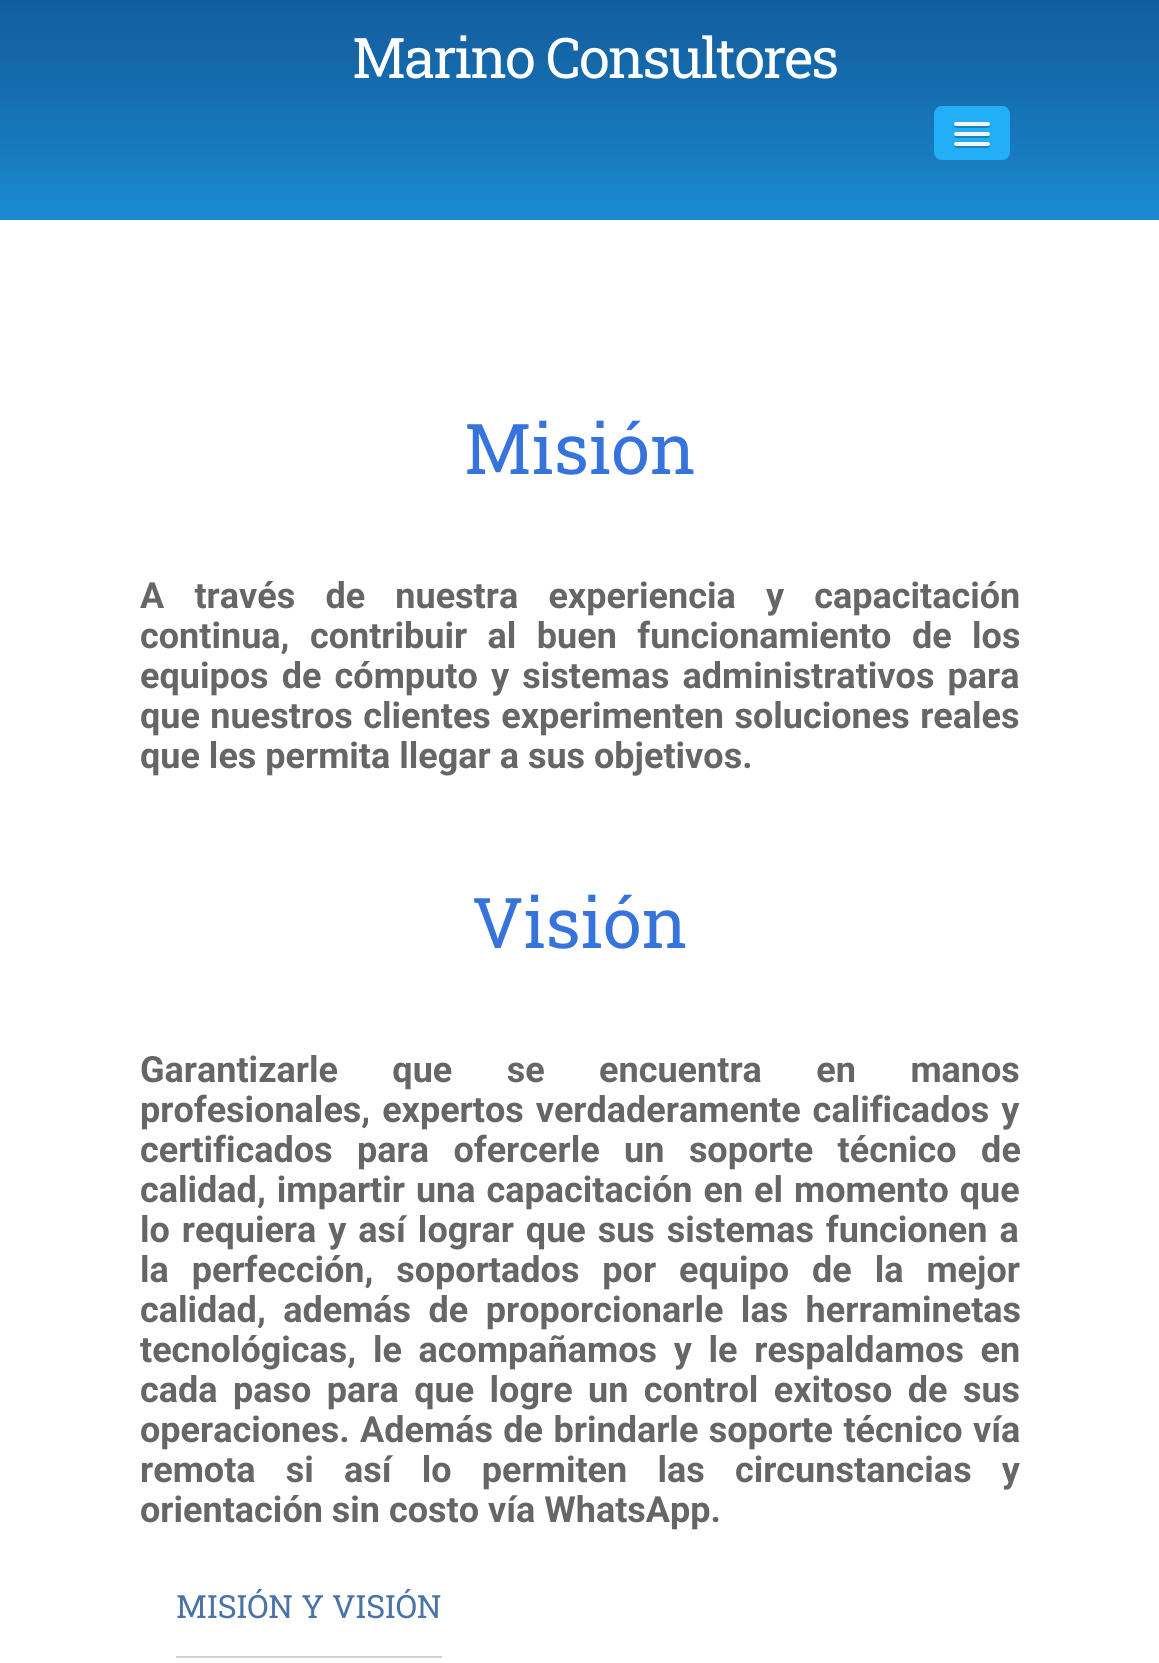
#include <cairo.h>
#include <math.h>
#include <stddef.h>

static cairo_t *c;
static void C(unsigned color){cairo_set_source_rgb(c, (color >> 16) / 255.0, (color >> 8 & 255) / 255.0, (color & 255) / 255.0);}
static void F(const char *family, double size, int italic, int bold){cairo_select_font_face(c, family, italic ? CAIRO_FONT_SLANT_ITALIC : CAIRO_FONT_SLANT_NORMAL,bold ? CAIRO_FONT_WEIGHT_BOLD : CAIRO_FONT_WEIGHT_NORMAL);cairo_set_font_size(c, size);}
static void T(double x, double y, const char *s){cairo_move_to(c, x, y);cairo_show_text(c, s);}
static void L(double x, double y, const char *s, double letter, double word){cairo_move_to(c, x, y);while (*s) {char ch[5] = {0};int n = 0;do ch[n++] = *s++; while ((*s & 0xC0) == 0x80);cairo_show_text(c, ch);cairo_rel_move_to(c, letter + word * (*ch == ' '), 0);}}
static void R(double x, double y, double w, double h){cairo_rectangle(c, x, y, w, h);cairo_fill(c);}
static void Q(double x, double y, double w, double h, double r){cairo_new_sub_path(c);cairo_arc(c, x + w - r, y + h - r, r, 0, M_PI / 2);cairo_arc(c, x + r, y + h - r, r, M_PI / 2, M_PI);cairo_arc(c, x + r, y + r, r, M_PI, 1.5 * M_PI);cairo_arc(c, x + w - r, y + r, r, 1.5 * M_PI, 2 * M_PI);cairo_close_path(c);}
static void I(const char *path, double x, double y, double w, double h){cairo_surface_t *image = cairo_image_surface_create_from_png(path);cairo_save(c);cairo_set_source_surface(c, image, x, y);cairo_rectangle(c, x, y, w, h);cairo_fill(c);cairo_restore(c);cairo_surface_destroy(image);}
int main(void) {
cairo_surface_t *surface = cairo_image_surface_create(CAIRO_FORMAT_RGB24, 1159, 1663);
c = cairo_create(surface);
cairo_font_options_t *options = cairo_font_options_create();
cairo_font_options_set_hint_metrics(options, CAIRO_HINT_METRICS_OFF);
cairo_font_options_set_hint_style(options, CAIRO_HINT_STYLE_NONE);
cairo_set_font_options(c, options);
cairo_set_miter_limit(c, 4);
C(0xffffff);
cairo_paint(c);
I("1.png",0,0,1159,220);
F("Roboto Slab",56,0,0);
C(0xffffff);
L(352,78,"Marino Consultores",-2,0);
C(0x22aff7);
Q(934,106,76,54,8);
cairo_fill(c);
C(0x1a83b9);
cairo_new_path(c);
cairo_move_to(c,954.5,125);
cairo_curve_to(c,952,129,961,128,961.5,128);
cairo_line_to(c,982.5,128);
cairo_curve_to(c,983,128,992,129,989.5,125);
cairo_curve_to(c,989.5,125.5,988.5,126,988,126);
cairo_line_to(c,956,126);
cairo_curve_to(c,955.5,126,954.5,125.5,954.5,125);
cairo_close_path(c);
cairo_fill(c);
C(0xf5f5f5);
Q(954,122,36,4,2);
cairo_fill(c);
C(0x1a83b9);
cairo_new_path(c);
cairo_move_to(c,954.5,135);
cairo_curve_to(c,952,139,961,138,961.5,138);
cairo_line_to(c,982.5,138);
cairo_curve_to(c,983,138,992,139,989.5,135);
cairo_curve_to(c,989.5,135.5,988.5,136,988,136);
cairo_line_to(c,956,136);
cairo_curve_to(c,955.5,136,954.5,135.5,954.5,135);
cairo_close_path(c);
cairo_fill(c);
C(0xf5f5f5);
Q(954,132,36,4,2);
cairo_fill(c);
C(0x1a83b9);
cairo_new_path(c);
cairo_move_to(c,954.5,145);
cairo_curve_to(c,952,149,961,148,961.5,148);
cairo_line_to(c,982.5,148);
cairo_curve_to(c,983,148,992,149,989.5,145);
cairo_curve_to(c,989.5,145.5,988.5,146,988,146);
cairo_line_to(c,956,146);
cairo_curve_to(c,955.5,146,954.5,145.5,954.5,145);
cairo_close_path(c);
cairo_fill(c);
C(0xf5f5f5);
Q(954,142,36,4,2);
cairo_fill(c);
F("Roboto Slab",70,0,0);
C(0x3673db);
T(464,474,"Misión");
F("Roboto",36,0,1);
C(0x666666);
L(140,608,"A través de nuestra experiencia y capacitación",0,21.25);
L(140,648,"continua, contribuir al buen funcionamiento de los",0,11.5);
L(140,688,"equipos de cómputo y sistemas administrativos para",0,4.25);
L(140,728,"que nuestros clientes experimenten soluciones reales",0,1.5);
T(140,768,"que les permita llegar a sus objetivos.");
F("Roboto Slab",70,0,0);
C(0x3673db);
T(472,948,"Visión");
F("Roboto",36,0,1);
C(0x666666);
L(140,1082,"Garantizarle que se encuentra en manos",0,45.5);
L(140,1122,"profesionales, expertos verdaderamente calificados y",0,3);
L(140,1162,"certificados para ofercerle un soporte técnico de",0,15.5);
L(140,1202,"calidad, impartir una capacitación en el momento que",0,2);
L(140,1242,"lo requiera y así lograr que sus sistemas funcionen a",0,3);
L(140,1282,"la perfección, soportados por equipo de la mejor",0,14);
L(140,1322,"calidad, además de proporcionarle las herraminetas",0,8.5);
L(140,1362,"tecnológicas, le acompañamos y le respaldamos en",0,7.75);
L(140,1402,"cada paso para que logre un control exitoso de sus",0,6.5);
L(140,1442,"operaciones. Además de brindarle soporte técnico vía",0,1.5);
L(140,1482,"remota si así lo permiten las circunstancias y",0,21.25);
T(140,1522,"orientación sin costo vía WhatsApp.");
F("Roboto Slab",32,0,0);
C(0x4974a5);
T(176,1618,"MISIÓN Y VISIÓN");
C(0xd1d1d1);
R(176,1656,266,2);
cairo_surface_write_to_png(surface, "o.png");
cairo_font_options_destroy(options);
cairo_destroy(c);
cairo_surface_destroy(surface);
return 0;
}
